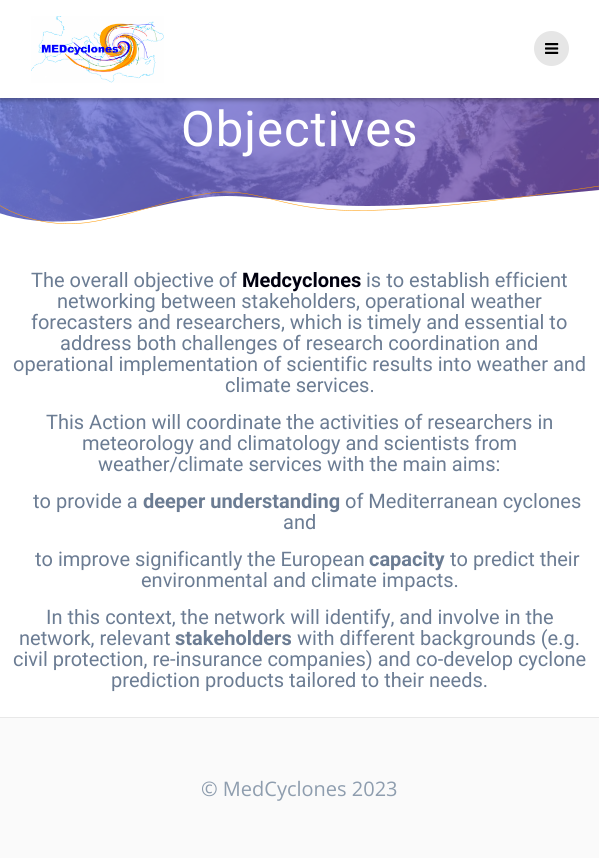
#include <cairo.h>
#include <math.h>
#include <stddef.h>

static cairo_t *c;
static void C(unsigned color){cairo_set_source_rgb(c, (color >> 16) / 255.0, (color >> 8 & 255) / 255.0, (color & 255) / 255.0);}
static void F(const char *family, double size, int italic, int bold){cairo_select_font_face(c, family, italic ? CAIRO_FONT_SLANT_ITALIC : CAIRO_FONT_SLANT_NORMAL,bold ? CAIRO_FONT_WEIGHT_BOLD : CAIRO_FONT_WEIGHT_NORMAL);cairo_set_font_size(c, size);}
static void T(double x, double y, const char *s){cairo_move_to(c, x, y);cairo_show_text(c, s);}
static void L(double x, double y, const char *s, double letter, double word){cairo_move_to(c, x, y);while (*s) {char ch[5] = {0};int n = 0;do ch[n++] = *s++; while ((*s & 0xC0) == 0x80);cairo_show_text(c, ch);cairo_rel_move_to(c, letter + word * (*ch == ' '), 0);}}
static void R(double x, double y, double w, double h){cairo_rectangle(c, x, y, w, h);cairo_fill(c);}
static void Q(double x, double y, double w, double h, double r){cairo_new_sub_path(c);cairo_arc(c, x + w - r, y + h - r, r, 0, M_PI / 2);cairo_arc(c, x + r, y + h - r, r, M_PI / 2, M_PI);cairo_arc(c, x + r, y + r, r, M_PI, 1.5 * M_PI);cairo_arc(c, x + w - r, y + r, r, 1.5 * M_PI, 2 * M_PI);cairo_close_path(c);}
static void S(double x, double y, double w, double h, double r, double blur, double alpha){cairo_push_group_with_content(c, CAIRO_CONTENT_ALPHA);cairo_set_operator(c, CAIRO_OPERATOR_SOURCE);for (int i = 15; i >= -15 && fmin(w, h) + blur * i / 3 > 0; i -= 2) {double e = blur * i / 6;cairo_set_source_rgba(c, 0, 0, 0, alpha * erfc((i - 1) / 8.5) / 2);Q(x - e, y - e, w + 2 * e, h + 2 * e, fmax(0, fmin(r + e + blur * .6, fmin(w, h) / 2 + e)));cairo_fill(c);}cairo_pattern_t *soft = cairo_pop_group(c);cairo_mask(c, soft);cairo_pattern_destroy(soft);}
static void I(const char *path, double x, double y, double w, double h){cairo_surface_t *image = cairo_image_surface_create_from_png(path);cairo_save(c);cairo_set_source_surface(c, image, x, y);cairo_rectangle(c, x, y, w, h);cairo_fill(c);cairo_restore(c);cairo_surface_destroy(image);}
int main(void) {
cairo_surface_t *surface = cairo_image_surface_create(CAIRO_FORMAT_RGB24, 599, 858);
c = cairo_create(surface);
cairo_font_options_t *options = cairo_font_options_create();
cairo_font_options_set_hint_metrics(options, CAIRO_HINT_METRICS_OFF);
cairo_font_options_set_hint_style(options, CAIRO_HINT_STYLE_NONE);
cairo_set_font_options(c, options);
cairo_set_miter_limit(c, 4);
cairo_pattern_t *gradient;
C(0xffffff);
cairo_paint(c);
I("3.png",0,98,599,124);
gradient = cairo_pattern_create_linear(92,-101,507,315);
cairo_pattern_add_color_stop_rgba(gradient,0,0.4,0.494,0.918,.8);
cairo_pattern_add_color_stop_rgba(gradient,1,0.463,0.294,0.635,.8);
cairo_set_source(c,gradient);
cairo_pattern_destroy(gradient);
R(0,98,599,124);
C(0x000000);
S(-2,-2,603,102,0,2.5,.33);
C(0xffffff);
R(0,0,599,98);
I("1.png",31,16,133,67);
C(0xe6e6e6);
cairo_arc(c,551.5,48.5,17.5,0,2 * M_PI);
cairo_fill(c);
I("2.png",545,43,14,11);
F("Roboto",49,0,0);
C(0xffffff);
L(181,146,"Objectives",1,0);
cairo_new_path(c);
cairo_move_to(c,-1,213);
cairo_line_to(c,-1,225);
cairo_line_to(c,599,225);
cairo_line_to(c,599,190);
cairo_curve_to(c,488,201,411,206,368,206);
cairo_curve_to(c,304,206,268,196,226,196);
cairo_curve_to(c,185,196,116,219,73,221);
cairo_curve_to(c,45,223,20,220,-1,213);
cairo_close_path(c);
cairo_fill(c);
cairo_new_path(c);
cairo_move_to(c,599.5,186);
cairo_curve_to(c,496.5,201.5,419,209.5,367,210.5);
cairo_curve_to(c,289,212,267,192,225.5,192);
cairo_curve_to(c,184,192,120.5,221,77.5,223.5);
cairo_curve_to(c,48.5,225,22.5,219,-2,204.5);
C(0xff9800);
cairo_set_line_width(c,.5);
cairo_stroke(c);
F("Roboto",20,0,0);
C(0x6b7c93);
T(31,287,"The overall objective of");
F("Roboto",20,0,1);
C(0x00000f);
T(242,287,"Medcyclones");
F("Roboto",20,0,0);
C(0x6b7c93);
T(366,287,"is to establish efficient");
T(57,308,"networking between stakeholders, operational weather");
T(31,329,"forecasters and researchers, which is timely and essential to");
T(60,350,"address both challenges of research coordination and");
T(13,371,"operational implementation of scientific results into weather and");
T(225,392,"climate services.");
T(46,429,"This Action will coordinate the activities of researchers in");
T(82,450,"meteorology and climatology and scientists from");
T(98,471,"weather/climate services with the main aims:");
T(33,508,"to provide a");
F("Roboto",20,0,1);
T(143,508,"deeper understanding");
F("Roboto",20,0,0);
T(345,508,"of Mediterranean cyclones");
T(283,529,"and");
T(35,566,"to improve significantly the European");
F("Roboto",20,0,1);
T(369,566,"capacity");
F("Roboto",20,0,0);
T(450,566,"to predict their");
T(141,587,"environmental and climate impacts.");
T(46,624,"In this context, the network will identify, and involve in the");
T(19,645,"network, relevant");
F("Roboto",20,0,1);
T(175,645,"stakeholders");
F("Roboto",20,0,0);
T(297,645,"with different backgrounds (e.g.");
T(13,666,"civil protection, re-insurance companies) and co-develop cyclone");
T(111,687,"prediction products tailored to their needs.");
C(0xfafafa);
R(0,718,599,140);
C(0xe8e8e8);
R(0,717,599,1);
F("Open Sans",20,0,0);
C(0x8e9dae);
T(201,796,"© MedCyclones 2023");
cairo_surface_write_to_png(surface, "o.png");
cairo_font_options_destroy(options);
cairo_destroy(c);
cairo_surface_destroy(surface);
return 0;
}
